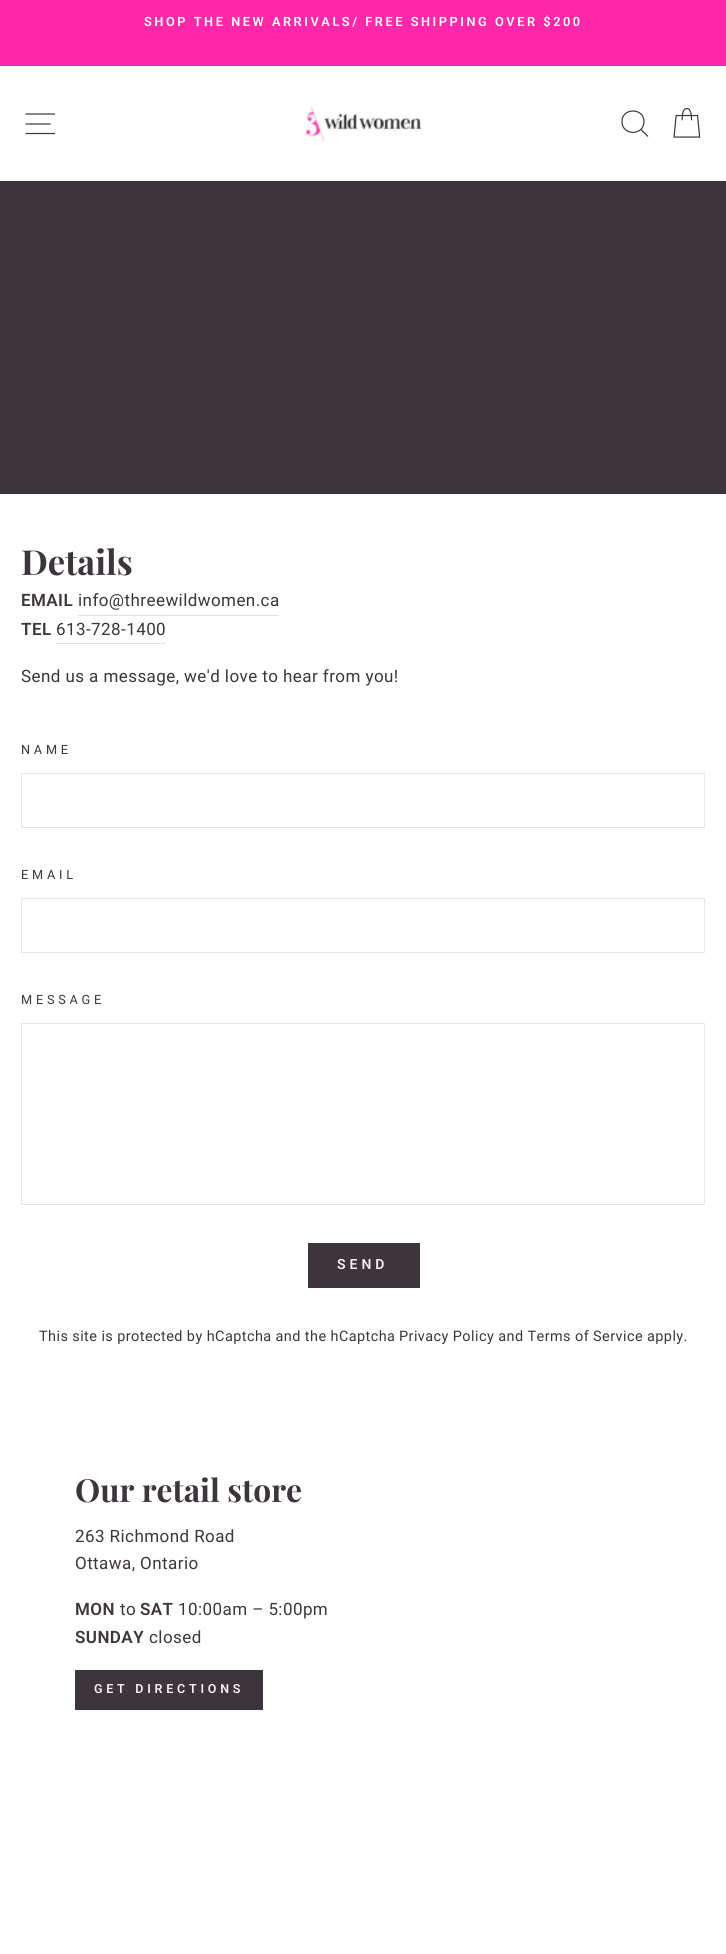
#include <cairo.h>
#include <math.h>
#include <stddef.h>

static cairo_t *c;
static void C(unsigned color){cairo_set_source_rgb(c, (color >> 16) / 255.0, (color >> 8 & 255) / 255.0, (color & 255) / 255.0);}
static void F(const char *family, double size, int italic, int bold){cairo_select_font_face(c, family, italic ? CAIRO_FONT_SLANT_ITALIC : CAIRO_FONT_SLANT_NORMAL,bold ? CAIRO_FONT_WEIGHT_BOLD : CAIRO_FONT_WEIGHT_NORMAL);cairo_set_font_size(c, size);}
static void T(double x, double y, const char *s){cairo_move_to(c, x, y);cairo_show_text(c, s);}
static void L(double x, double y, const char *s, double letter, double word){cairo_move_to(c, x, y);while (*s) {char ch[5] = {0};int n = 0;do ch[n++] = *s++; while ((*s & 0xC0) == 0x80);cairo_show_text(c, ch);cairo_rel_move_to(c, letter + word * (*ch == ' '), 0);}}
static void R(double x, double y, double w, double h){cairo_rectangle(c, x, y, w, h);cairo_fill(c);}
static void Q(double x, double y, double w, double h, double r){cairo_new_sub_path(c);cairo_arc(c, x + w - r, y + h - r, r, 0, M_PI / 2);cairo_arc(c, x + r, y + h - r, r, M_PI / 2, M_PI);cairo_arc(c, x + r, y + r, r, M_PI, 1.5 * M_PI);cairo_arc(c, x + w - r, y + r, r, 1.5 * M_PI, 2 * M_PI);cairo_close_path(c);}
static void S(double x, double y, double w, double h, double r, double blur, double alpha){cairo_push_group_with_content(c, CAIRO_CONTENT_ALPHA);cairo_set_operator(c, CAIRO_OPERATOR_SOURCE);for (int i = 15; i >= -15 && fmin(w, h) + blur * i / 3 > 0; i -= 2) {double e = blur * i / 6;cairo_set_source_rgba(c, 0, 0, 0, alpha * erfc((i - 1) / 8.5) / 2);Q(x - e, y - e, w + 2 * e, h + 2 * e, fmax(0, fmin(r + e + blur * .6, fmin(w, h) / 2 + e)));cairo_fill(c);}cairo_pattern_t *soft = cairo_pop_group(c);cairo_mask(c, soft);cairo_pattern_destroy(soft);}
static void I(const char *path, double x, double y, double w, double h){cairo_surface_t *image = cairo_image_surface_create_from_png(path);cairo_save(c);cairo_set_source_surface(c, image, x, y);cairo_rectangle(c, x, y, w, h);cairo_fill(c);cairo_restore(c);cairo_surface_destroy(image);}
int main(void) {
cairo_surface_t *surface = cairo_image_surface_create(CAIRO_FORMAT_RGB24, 726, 1954);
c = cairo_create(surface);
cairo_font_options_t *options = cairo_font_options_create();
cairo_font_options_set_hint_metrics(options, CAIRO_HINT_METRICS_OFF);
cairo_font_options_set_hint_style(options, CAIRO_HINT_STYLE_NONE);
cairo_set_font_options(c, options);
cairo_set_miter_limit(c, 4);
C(0xffffff);
cairo_paint(c);
C(0xff28aa);
R(0,0,726,66);
F("Roboto SemiBold",12.75,0,0);
C(0xffffff);
L(144,26,"SHOP THE NEW ARRIVALS/ FREE SHIPPING OVER $200",2.55,0);
C(0x3c353b);
R(0,181,726,313);
C(0x000000);
S(0,66,726,115,0,.5,.2);
C(0xffffff);
R(0,66,726,115);
cairo_new_path(c);
cairo_move_to(c,25.5,114);
cairo_line_to(c,55,114);
cairo_move_to(c,25.5,124);
cairo_line_to(c,50.5,124);
cairo_move_to(c,25.5,133.5);
cairo_line_to(c,55,133.5);
C(0x3c353b);
cairo_set_line_width(c,1.2);
cairo_stroke(c);
I("1.png",304,104,121,38);
cairo_new_path(c);
cairo_move_to(c,644,121.5);
cairo_curve_to(c,644,136,622,136,622,121.5);
cairo_curve_to(c,622,107.5,644,107.5,644,121.5);
cairo_close_path(c);
cairo_move_to(c,648,136.5);
cairo_line_to(c,641,129.5);
cairo_stroke(c);
I("2.png",673,107,28,31);
F("Playfair Display",34.5,0,1);
T(21,575,"Details");
F("Roboto SemiBold",17,0,0);
L(21,606,"EMAIL",.43,0);
C(0xe2e1e2);
R(78,615,201,1);
F("Roboto",17,0,0);
C(0x3c353b);
L(78,606,"info@threewildwomen.ca",.43,0);
F("Roboto SemiBold",17,0,0);
L(21,635,"TEL",.43,0);
C(0xe2e1e2);
R(56,643,110,1);
F("Roboto",17,0,0);
C(0x3c353b);
L(56,635,"613-728-1400",.43,0);
L(21,682,"Send us a message, we'd love to hear from you!",.43,0);
F("Roboto",12.75,0,0);
L(21,754,"NAME",3.75,0);
cairo_rectangle(c,21.5,773.5,683,54);
C(0xe8e8e1);
cairo_set_line_width(c,1);
cairo_stroke(c);
C(0x3c353b);
L(21,879,"EMAIL",3.75,0);
cairo_rectangle(c,21.5,898.5,683,54);
C(0xe8e8e1);
cairo_stroke(c);
C(0x3c353b);
L(21,1004,"MESSAGE",3.75,0);
cairo_rectangle(c,21.5,1023.5,683,181);
C(0xe8e8e1);
cairo_stroke(c);
C(0x3c353b);
R(308,1243,112,45);
F("Roboto SemiBold",14,0,0);
C(0xfbecf5);
L(337,1269,"SEND",4,0);
F("Roboto",14.45,0,0);
C(0x3c353b);
L(39,1341,"This site is protected by hCaptcha and the hCaptcha",.43,0);
L(399,1341,"Privacy Policy and Terms of Service apply.",.43,0);
F("Playfair Display",31.75,0,1);
T(75,1502,"Our retail store");
F("Roboto",17,0,0);
L(75,1542,"263 Richmond Road",.43,0);
L(75,1569,"Ottawa, Ontario",.43,0);
F("Roboto SemiBold",17,0,0);
L(75,1615,"MON",.43,0);
F("Roboto",17,0,0);
L(120,1615,"to",.43,0);
F("Roboto SemiBold",17,0,0);
L(140,1615,"SAT",.43,0);
F("Roboto",17,0,0);
L(178,1615,"10:00am – 5:00pm",.43,0);
F("Roboto SemiBold",17,0,0);
L(75,1643,"SUNDAY",.43,0);
F("Roboto",17,0,0);
L(149,1643,"closed",.43,0);
R(75,1670,188,40);
F("Roboto SemiBold",12.5,0,0);
C(0xfbecf5);
L(94,1693,"GET DIRECTIONS",3.75,0);
cairo_surface_write_to_png(surface, "o.png");
cairo_font_options_destroy(options);
cairo_destroy(c);
cairo_surface_destroy(surface);
return 0;
}
